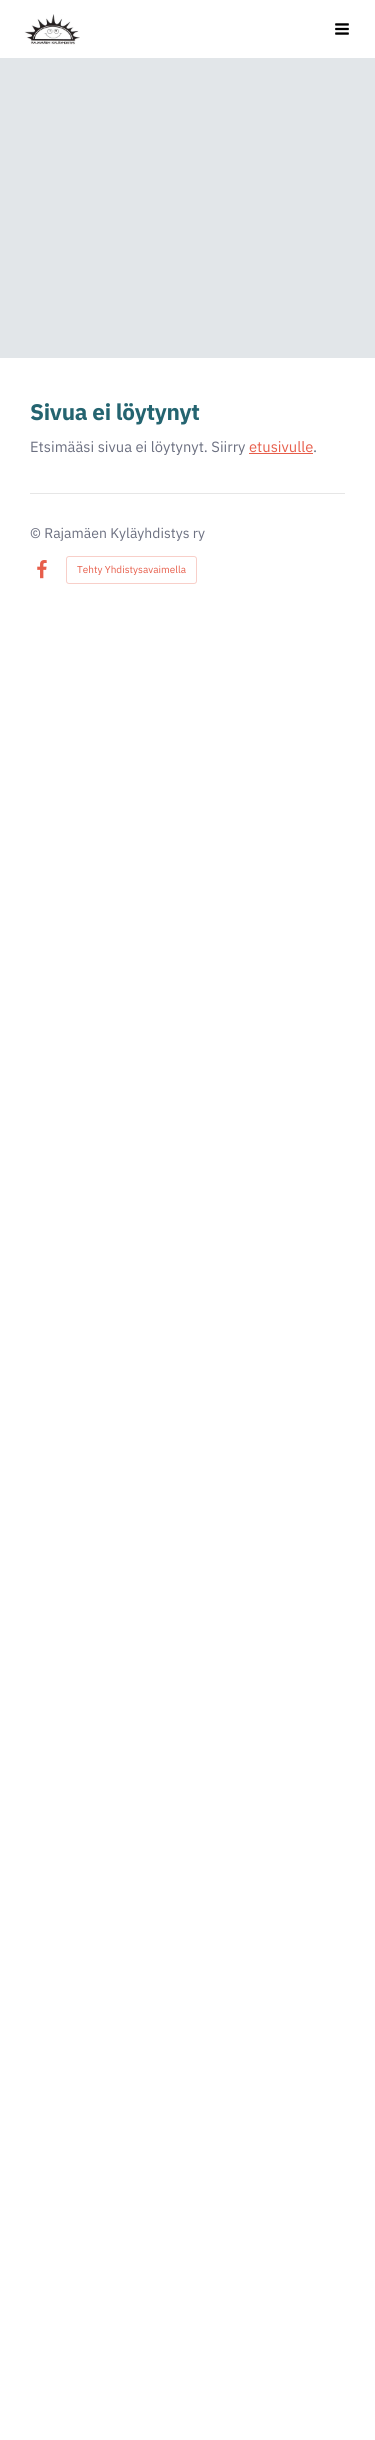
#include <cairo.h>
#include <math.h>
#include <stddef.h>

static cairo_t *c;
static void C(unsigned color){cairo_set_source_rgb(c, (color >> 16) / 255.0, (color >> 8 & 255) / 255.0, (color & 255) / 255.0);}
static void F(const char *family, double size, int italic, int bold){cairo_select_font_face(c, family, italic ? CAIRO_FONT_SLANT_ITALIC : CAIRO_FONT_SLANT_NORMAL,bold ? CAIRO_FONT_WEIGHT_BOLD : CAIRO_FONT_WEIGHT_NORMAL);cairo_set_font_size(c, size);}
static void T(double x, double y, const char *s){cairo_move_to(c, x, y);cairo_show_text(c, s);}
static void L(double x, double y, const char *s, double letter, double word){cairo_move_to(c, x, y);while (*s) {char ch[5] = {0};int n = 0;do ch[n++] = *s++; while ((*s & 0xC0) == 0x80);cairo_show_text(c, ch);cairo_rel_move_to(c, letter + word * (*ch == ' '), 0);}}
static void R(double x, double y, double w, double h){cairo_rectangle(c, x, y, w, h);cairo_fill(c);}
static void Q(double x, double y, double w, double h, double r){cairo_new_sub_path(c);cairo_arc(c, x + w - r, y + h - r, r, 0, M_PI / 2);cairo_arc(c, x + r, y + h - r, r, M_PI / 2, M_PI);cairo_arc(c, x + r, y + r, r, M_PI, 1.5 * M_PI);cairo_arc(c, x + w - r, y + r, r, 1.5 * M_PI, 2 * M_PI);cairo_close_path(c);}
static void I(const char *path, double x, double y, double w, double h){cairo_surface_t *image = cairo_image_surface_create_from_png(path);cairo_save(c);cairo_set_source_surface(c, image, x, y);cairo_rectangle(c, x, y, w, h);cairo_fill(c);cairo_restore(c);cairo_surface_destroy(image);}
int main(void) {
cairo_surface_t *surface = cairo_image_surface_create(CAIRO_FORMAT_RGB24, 375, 2440);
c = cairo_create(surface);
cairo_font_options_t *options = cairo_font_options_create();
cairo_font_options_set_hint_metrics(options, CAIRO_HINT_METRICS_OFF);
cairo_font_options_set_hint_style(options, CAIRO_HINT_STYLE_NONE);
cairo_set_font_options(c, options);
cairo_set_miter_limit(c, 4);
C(0xffffff);
cairo_paint(c);
I("1.png",24,14,56,31);
I("2.png",335,23,14,12);
C(0xe2e6e9);
R(0,58,375,300);
F("IBM Plex Sans",22.5,0,1);
C(0x246470);
L(30,420,"Sivua ei löytynyt",-.3,0);
F("IBM Plex Sans",14.75,0,0);
C(0x6b6f80);
T(30,452,"Etsimääsi sivua ei löytynyt. Siirry");
C(0xe75e4b);
T(249,452,"etusivulle");
R(249,453,64,1);
C(0x6b6f80);
T(313,452,".");
C(0xe6e6e6);
R(30,493,315,1);
F("IBM Plex Sans",14,0,0);
C(0x6b6f80);
T(30,538,"© Rajamäen Kyläyhdistys ry");
I("3.png",37,560,10,19);
Q(66.5,556.5,130,27,2.5);
C(0xf8cfc9);
cairo_set_line_width(c,1);
cairo_stroke(c);
F("IBM Plex Sans",10,0,0);
C(0xe75e4b);
T(77,573,"Tehty Yhdistysavaimella");
cairo_surface_write_to_png(surface, "o.png");
cairo_font_options_destroy(options);
cairo_destroy(c);
cairo_surface_destroy(surface);
return 0;
}
